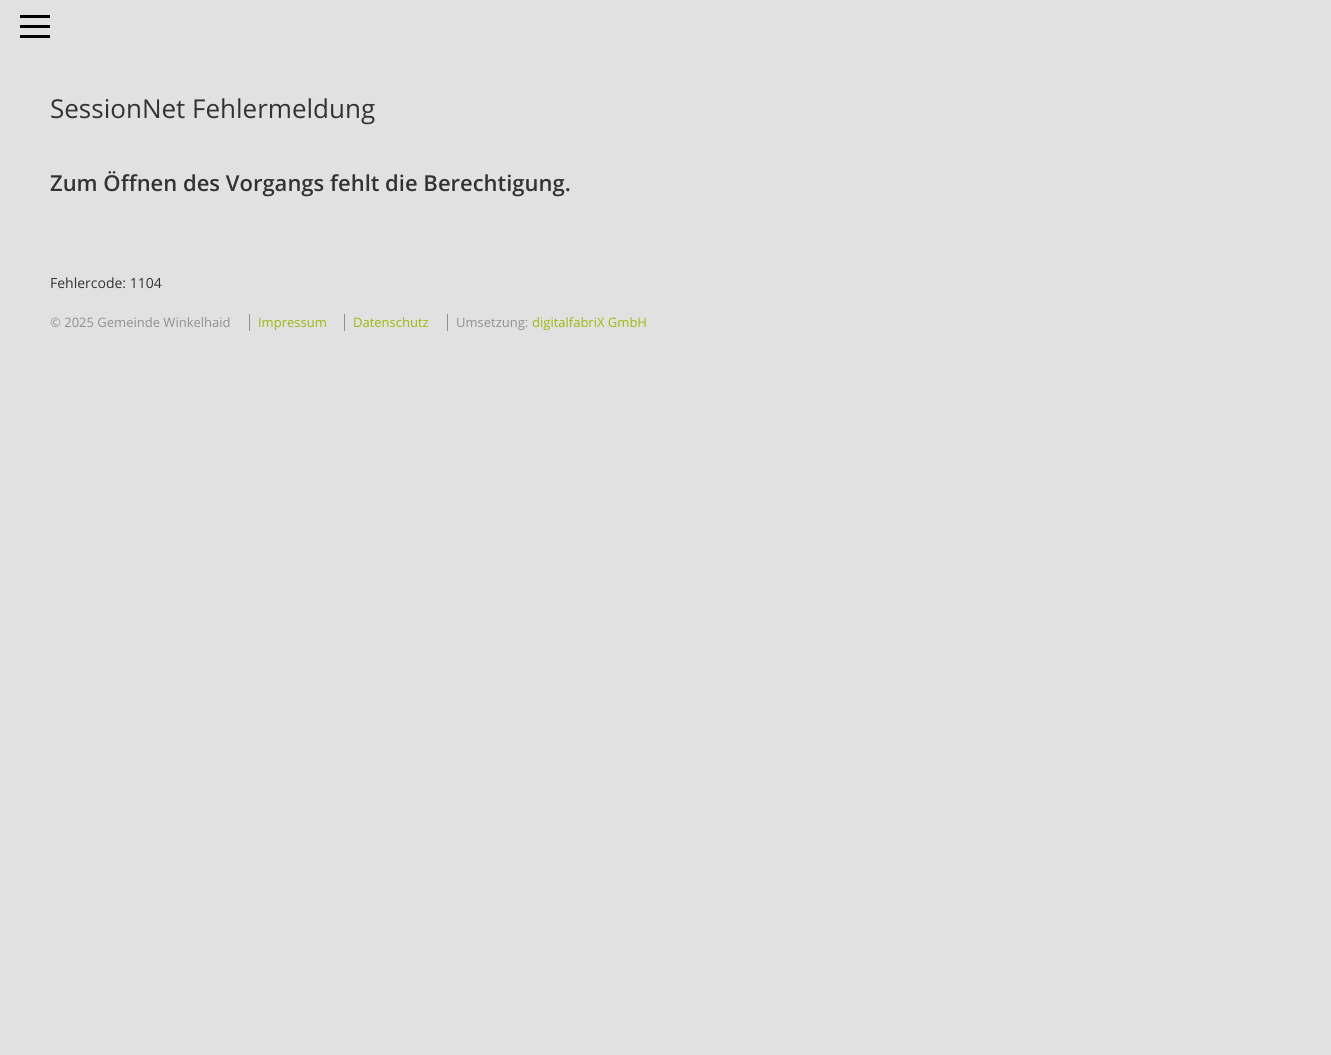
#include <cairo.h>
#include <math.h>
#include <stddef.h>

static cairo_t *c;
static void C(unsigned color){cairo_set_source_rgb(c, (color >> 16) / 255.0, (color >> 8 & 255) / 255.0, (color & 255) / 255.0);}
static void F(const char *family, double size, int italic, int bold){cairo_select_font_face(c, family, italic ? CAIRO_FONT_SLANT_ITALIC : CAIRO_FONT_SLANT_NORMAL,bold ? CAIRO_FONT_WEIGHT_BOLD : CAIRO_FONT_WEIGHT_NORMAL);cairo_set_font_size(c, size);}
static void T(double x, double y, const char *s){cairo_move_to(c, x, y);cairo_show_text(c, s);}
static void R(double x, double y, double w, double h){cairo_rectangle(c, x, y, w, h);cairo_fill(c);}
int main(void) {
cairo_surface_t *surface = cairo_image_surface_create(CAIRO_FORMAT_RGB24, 1331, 1055);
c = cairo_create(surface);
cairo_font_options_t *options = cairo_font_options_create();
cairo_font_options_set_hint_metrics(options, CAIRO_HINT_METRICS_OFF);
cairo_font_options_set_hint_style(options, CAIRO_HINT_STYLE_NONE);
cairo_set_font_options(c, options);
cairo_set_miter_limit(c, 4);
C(0xe1e1e1);
cairo_paint(c);
C(0x000000);
R(20,15,30,3);
R(20,25,30,3);
R(20,35,30,3);
F("Open Sans",26,0,0);
C(0x333333);
T(50,118,"SessionNet Fehlermeldung");
F("Open Sans SemiBold",22,0,0);
T(50,191,"Zum Öffnen des Vorgangs fehlt die Berechtigung.");
F("Open Sans",14,0,0);
T(50,288,"Fehlercode: 1104");
F("Open Sans",13,0,0);
C(0x909090);
T(50,327,"© 2025 Gemeinde Winkelhaid");
R(249,314,1,17);
C(0x9fb80a);
T(258,327,"Impressum");
C(0x909090);
R(344,314,1,17);
C(0x9fb80a);
T(353,327,"Datenschutz");
C(0x909090);
R(447,314,1,17);
T(456,327,"Umsetzung:");
C(0x9fb80a);
T(532,327,"digitalfabriX GmbH");
cairo_surface_write_to_png(surface, "o.png");
cairo_font_options_destroy(options);
cairo_destroy(c);
cairo_surface_destroy(surface);
return 0;
}
